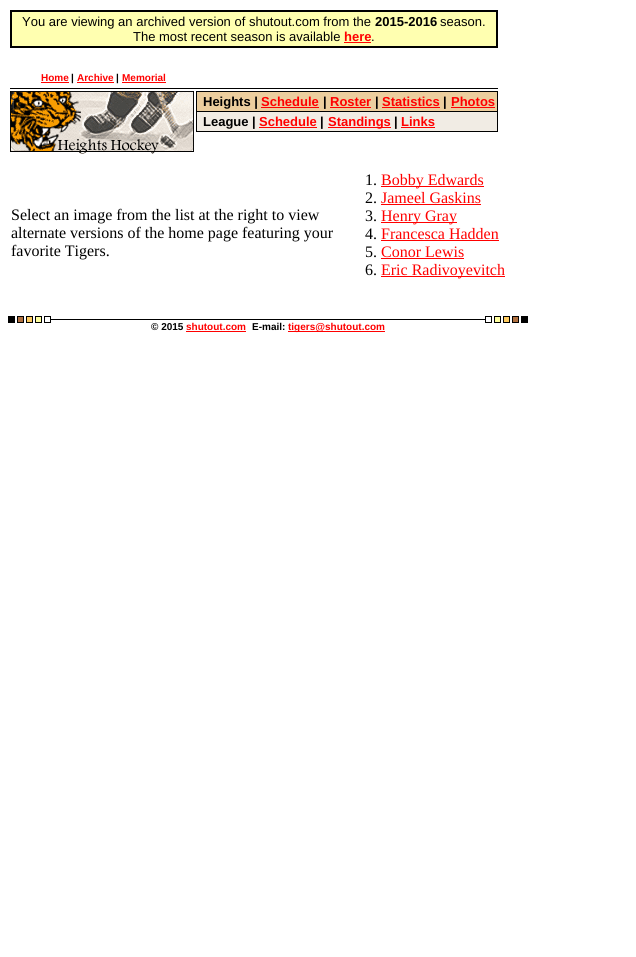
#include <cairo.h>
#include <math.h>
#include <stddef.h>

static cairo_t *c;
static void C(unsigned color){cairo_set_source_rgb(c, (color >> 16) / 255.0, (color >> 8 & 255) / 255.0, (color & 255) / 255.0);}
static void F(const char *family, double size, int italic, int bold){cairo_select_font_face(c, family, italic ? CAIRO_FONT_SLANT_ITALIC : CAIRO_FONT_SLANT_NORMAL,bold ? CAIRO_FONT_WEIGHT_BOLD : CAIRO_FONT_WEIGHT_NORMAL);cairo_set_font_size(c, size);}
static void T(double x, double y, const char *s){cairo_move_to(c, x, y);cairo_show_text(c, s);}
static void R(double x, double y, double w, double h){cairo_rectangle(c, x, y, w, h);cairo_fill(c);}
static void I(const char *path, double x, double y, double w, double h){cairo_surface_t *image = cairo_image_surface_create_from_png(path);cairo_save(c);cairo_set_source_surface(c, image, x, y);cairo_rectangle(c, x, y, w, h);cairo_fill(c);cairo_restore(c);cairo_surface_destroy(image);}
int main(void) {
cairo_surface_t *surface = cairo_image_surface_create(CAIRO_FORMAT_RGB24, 636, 957);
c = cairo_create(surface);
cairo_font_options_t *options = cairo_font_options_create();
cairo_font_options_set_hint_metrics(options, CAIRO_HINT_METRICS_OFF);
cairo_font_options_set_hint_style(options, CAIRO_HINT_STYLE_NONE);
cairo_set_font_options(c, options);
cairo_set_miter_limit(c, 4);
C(0xffffff);
cairo_paint(c);
C(0x000000);
R(10,10,488,38);
C(0xffffb0);
R(12,12,484,34);
F("Liberation Sans",13,0,0);
C(0x000000);
T(22,26,"You are viewing an archived version of shutout.com from the");
F("Liberation Sans",13,0,1);
T(375,26,"2015-2016");
F("Liberation Sans",13,0,0);
T(440,26,"season.");
T(133,41,"The most recent season is available");
F("Liberation Sans",13,0,1);
C(0xff0000);
T(344,41,"here");
F("Liberation Sans",13,0,0);
C(0x000000);
T(371,41,".");
C(0xff0000);
R(344,42,27,1);
F("Liberation Sans",10,0,1);
T(41,81,"Home");
R(41,82,28,1);
C(0x000000);
T(71,81,"|");
C(0xff0000);
T(77,81,"Archive");
R(77,82,37,1);
C(0x000000);
T(116,81,"|");
C(0xff0000);
T(122,81,"Memorial");
R(122,82,44,1);
C(0x000000);
R(10,88,488,1);
I("1.png",10,91,184,63);
R(196,91,302,41);
C(0xecce9e);
R(197,92,300,19);
F("Liberation Sans",13,0,1);
C(0x000000);
T(203,106,"Heights |");
C(0xff0000);
T(261,106,"Schedule");
R(261,107,58,1);
C(0x000000);
T(323,106,"|");
C(0xff0000);
T(330,106,"Roster");
R(330,107,41,1);
C(0x000000);
T(375,106,"|");
C(0xff0000);
T(382,106,"Statistics");
R(382,107,58,1);
C(0x000000);
T(443,106,"|");
C(0xff0000);
T(451,106,"Photos");
R(451,107,44,1);
C(0xf1ece4);
R(197,112,300,19);
C(0x000000);
T(203,126,"League |");
C(0xff0000);
T(259,126,"Schedule");
R(259,127,58,1);
C(0x000000);
T(320,126,"|");
C(0xff0000);
R(328,127,63,1);
T(328,126,"Standings");
C(0x000000);
T(394,126,"|");
C(0xff0000);
T(401,126,"Links");
R(401,127,34,1);
F("Liberation Serif",16,0,0);
C(0x000000);
T(11,220,"Select an image from the list at the right to view");
T(11,238,"alternate versions of the home page featuring your");
T(11,256,"favorite Tigers.");
T(365,185,"1.");
C(0xff0000);
R(381,186,103,1);
T(381,185,"Bobby Edwards");
C(0x000000);
T(365,203,"2.");
C(0xff0000);
T(381,203,"Jameel Gaskins");
R(381,204,100,1);
C(0x000000);
T(365,221,"3.");
C(0xff0000);
R(381,222,76,1);
T(381,221,"Henry Gray");
C(0x000000);
T(365,239,"4.");
C(0xff0000);
T(381,239,"Francesca Hadden");
R(381,240,118,1);
C(0x000000);
T(365,257,"5.");
C(0xff0000);
T(381,257,"Conor Lewis");
R(381,258,83,1);
C(0x000000);
T(365,275,"6.");
C(0xff0000);
R(381,276,124,1);
T(381,275,"Eric Radivoyevitch");
C(0x000000);
R(8,316,7,7);
R(17,316,7,7);
C(0xb07040);
R(18,317,5,5);
C(0x000000);
R(26,316,7,7);
C(0xffcc60);
R(27,317,5,5);
C(0x000000);
R(35,316,7,7);
C(0xffffa0);
R(36,317,5,5);
C(0x000000);
R(44,316,7,7);
C(0xffffff);
R(45,317,5,5);
C(0x000000);
R(485,316,7,7);
C(0xffffff);
R(486,317,5,5);
C(0x000000);
R(494,316,7,7);
C(0xffffa0);
R(495,317,5,5);
C(0x000000);
R(503,316,7,7);
C(0xffcc60);
R(504,317,5,5);
C(0x000000);
R(512,316,7,7);
C(0xb07040);
R(513,317,5,5);
C(0x000000);
R(521,316,7,7);
R(51,319,434,1);
F("Liberation Sans",10,0,1);
T(151,330,"© 2015");
C(0xff0000);
T(186,330,"shutout.com");
R(186,331,60,1);
C(0x000000);
T(252,330,"E-mail:");
C(0xff0000);
R(288,331,97,1);
T(288,330,"tigers@shutout.com");
cairo_surface_write_to_png(surface, "o.png");
cairo_font_options_destroy(options);
cairo_destroy(c);
cairo_surface_destroy(surface);
return 0;
}
